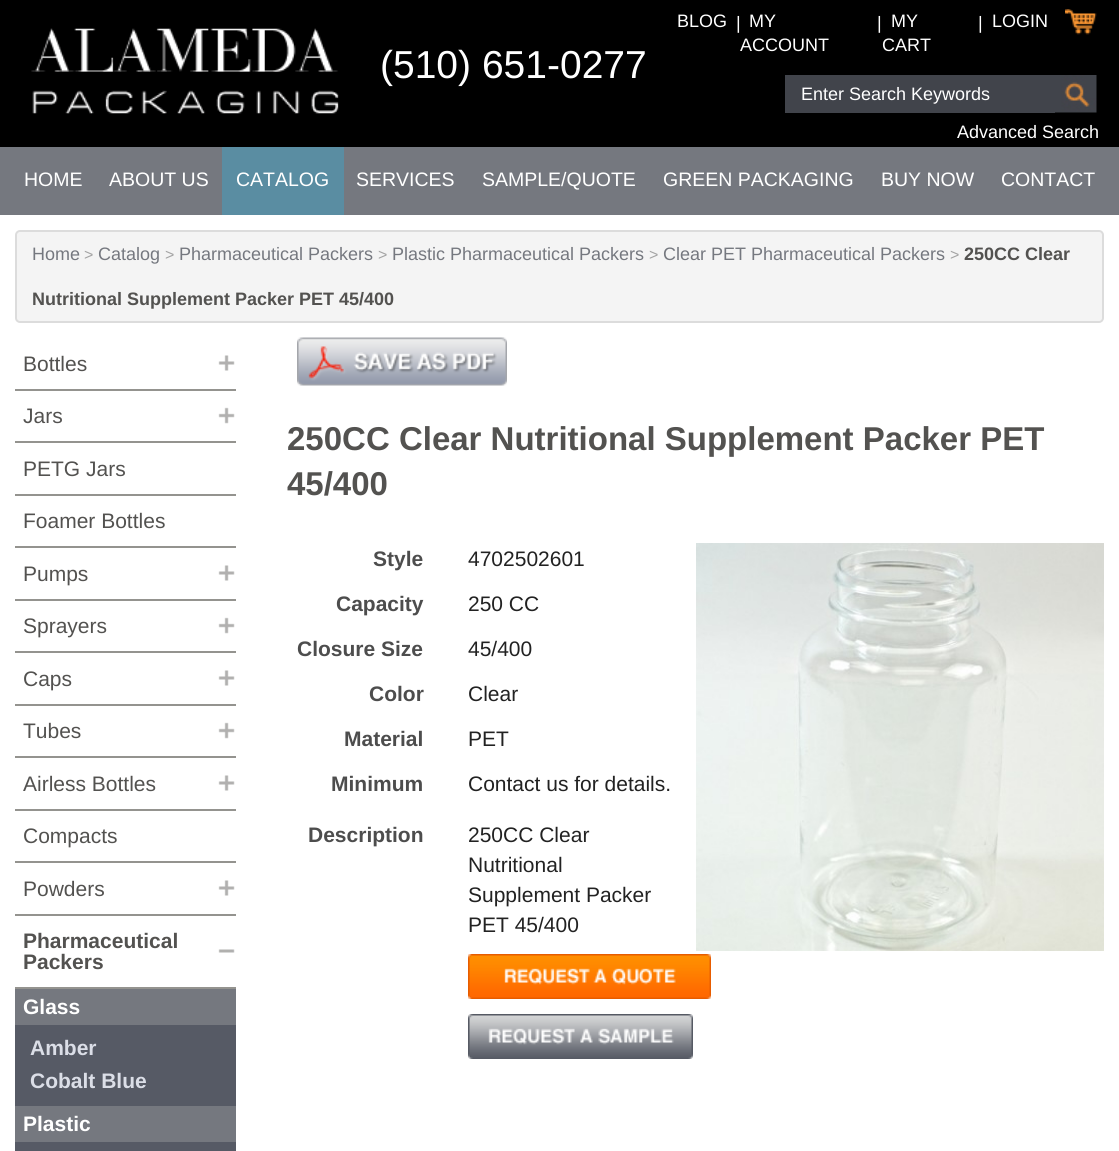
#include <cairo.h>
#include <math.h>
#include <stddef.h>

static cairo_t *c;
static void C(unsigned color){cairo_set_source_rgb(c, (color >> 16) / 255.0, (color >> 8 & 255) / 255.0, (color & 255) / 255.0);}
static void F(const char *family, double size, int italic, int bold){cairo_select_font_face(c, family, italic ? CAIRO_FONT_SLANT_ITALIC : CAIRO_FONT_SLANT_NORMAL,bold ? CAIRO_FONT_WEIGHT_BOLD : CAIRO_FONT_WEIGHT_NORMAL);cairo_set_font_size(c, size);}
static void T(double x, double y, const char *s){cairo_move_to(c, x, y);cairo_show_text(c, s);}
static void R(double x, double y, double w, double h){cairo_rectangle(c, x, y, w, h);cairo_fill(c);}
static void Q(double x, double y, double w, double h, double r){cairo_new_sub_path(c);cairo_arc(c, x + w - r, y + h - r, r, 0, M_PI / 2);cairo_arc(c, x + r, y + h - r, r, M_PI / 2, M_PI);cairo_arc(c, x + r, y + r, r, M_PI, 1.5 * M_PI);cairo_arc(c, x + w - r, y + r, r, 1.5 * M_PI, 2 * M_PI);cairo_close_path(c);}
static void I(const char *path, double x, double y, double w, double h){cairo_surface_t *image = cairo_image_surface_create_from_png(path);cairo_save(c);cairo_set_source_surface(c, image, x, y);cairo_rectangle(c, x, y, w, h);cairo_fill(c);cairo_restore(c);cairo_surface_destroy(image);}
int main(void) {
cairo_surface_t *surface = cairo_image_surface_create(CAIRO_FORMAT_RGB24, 1119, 1151);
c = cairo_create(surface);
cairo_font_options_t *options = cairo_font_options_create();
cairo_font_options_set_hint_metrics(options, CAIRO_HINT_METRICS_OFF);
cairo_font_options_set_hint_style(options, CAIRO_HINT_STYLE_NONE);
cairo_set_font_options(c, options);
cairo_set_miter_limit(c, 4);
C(0xffffff);
cairo_paint(c);
C(0x000000);
R(0,0,1119,147);
I("1.png",31,28,308,86);
F("Liberation Sans",39,0,0);
C(0xffffff);
T(380,78,"(510) 651-0277");
F("Liberation Sans",18,0,0);
T(677,27,"BLOG");
T(736,29,"|");
T(749,27,"MY");
T(740,51,"ACCOUNT");
T(877,29,"|");
T(891,27,"MY");
T(882,51,"CART");
T(978,29,"|");
T(992,27,"LOGIN");
I("2.png",1065,9,32,26);
C(0x41444b);
R(785,75,270,38);
C(0xffffff);
T(801,100,"Enter Search Keywords");
I("3.png",1055,75,42,38);
T(957,138,"Advanced Search");
C(0x75787f);
R(0,147,1119,68);
F("Liberation Sans",19.5,0,0);
C(0xffffff);
T(24,186,"HOME");
T(109,186,"ABOUT US");
C(0x5a8da2);
R(222,147,122,68);
C(0xffffff);
T(236,186,"CATALOG");
T(356,186,"SERVICES");
T(482,186,"SAMPLE/QUOTE");
T(663,186,"GREEN PACKAGING");
T(881,186,"BUY NOW");
T(1001,186,"CONTACT");
C(0xf4f4f4);
Q(16,231,1087,91,4);
cairo_fill_preserve(c);
C(0xdcdcdc);
cairo_stroke(c);
F("Liberation Sans",18,0,0);
C(0x75787f);
T(32,260,"Home");
F("Liberation Sans",16,0,0);
C(0xa3a3a3);
T(84,260,">");
F("Liberation Sans",18,0,0);
C(0x75787f);
T(98,260,"Catalog");
F("Liberation Sans",16,0,0);
C(0xa3a3a3);
T(165,260,">");
F("Liberation Sans",18,0,0);
C(0x75787f);
T(179,260,"Pharmaceutical Packers");
F("Liberation Sans",16,0,0);
C(0xa3a3a3);
T(378,260,">");
F("Liberation Sans",18,0,0);
C(0x75787f);
T(392,260,"Plastic Pharmaceutical Packers");
F("Liberation Sans",16,0,0);
C(0xa3a3a3);
T(649,260,">");
F("Liberation Sans",18,0,0);
C(0x75787f);
T(663,260,"Clear PET Pharmaceutical Packers");
F("Liberation Sans",16,0,0);
C(0xa3a3a3);
T(950,260,">");
F("Liberation Sans",18,0,1);
C(0x535250);
T(964,260,"250CC Clear");
T(32,305,"Nutritional Supplement Packer PET 45/400");
I("4.png",218,355,17,16);
C(0x94938f);
R(15,389,221,2);
F("Liberation Sans",21,0,0);
C(0x535250);
T(23,371,"Bottles");
I("5.png",218,407,17,17);
C(0x94938f);
R(15,441,221,2);
C(0x535250);
T(23,423,"Jars");
C(0x94938f);
R(15,494,221,2);
C(0x535250);
T(23,476,"PETG Jars");
C(0x94938f);
R(15,546,221,2);
C(0x535250);
T(23,528,"Foamer Bottles");
I("4.png",218,565,17,16);
C(0x94938f);
R(15,599,221,2);
C(0x535250);
T(23,581,"Pumps");
I("5.png",218,617,17,17);
C(0x94938f);
R(15,651,221,2);
C(0x535250);
T(23,633,"Sprayers");
I("4.png",218,670,17,16);
C(0x94938f);
R(15,704,221,2);
C(0x535250);
T(23,686,"Caps");
I("5.png",218,722,17,17);
C(0x94938f);
R(15,756,221,2);
C(0x535250);
T(23,738,"Tubes");
I("4.png",218,775,17,16);
C(0x94938f);
R(15,809,221,2);
C(0x535250);
T(23,791,"Airless Bottles");
C(0x94938f);
R(15,861,221,2);
C(0x535250);
T(23,843,"Compacts");
I("4.png",218,880,17,16);
C(0x94938f);
R(15,914,221,2);
C(0x535250);
T(23,896,"Powders");
I("6.png",218,949,17,4);
C(0x94938f);
R(15,987,221,2);
F("Liberation Sans",21,0,1);
C(0x535250);
T(23,948,"Pharmaceutical");
T(23,969,"Packers");
C(0x565a65);
R(15,1025,221,126);
C(0x75787f);
R(15,989,221,36);
C(0xffffff);
T(23,1014,"Glass");
C(0xdbdee7);
T(30,1055,"Amber");
T(30,1088,"Cobalt Blue");
C(0x75787f);
R(15,1106,221,36);
C(0xffffff);
T(23,1131,"Plastic");
I("7.png",297,337,210,49);
F("Liberation Sans",33,0,1);
C(0x535250);
T(287,450,"250CC Clear Nutritional Supplement Packer PET");
T(287,495,"45/400");
F("Liberation Sans",21,0,1);
C(0x4d4d4d);
T(373,566,"Style");
F("Liberation Sans",21,0,0);
C(0x222222);
T(468,566,"4702502601");
F("Liberation Sans",21,0,1);
C(0x4d4d4d);
T(336,611,"Capacity");
F("Liberation Sans",21,0,0);
C(0x222222);
T(468,611,"250 CC");
F("Liberation Sans",21,0,1);
C(0x4d4d4d);
T(297,656,"Closure Size");
F("Liberation Sans",21,0,0);
C(0x222222);
T(468,656,"45/400");
F("Liberation Sans",21,0,1);
C(0x4d4d4d);
T(369,701,"Color");
F("Liberation Sans",21,0,0);
C(0x222222);
T(468,701,"Clear");
F("Liberation Sans",21,0,1);
C(0x4d4d4d);
T(344,746,"Material");
F("Liberation Sans",21,0,0);
C(0x222222);
T(468,746,"PET");
F("Liberation Sans",21,0,1);
C(0x4d4d4d);
T(331,791,"Minimum");
F("Liberation Sans",21,0,0);
C(0x222222);
T(468,791,"Contact us for details.");
F("Liberation Sans",21,0,1);
C(0x4d4d4d);
T(308,842,"Description");
F("Liberation Sans",21,0,0);
C(0x222222);
T(468,842,"250CC Clear");
T(468,872,"Nutritional");
T(468,902,"Supplement Packer");
T(468,932,"PET 45/400");
I("8.png",468,954,243,45);
I("9.png",468,1014,225,45);
I("10.png",696,543,408,408);
cairo_surface_write_to_png(surface, "o.png");
cairo_font_options_destroy(options);
cairo_destroy(c);
cairo_surface_destroy(surface);
return 0;
}
